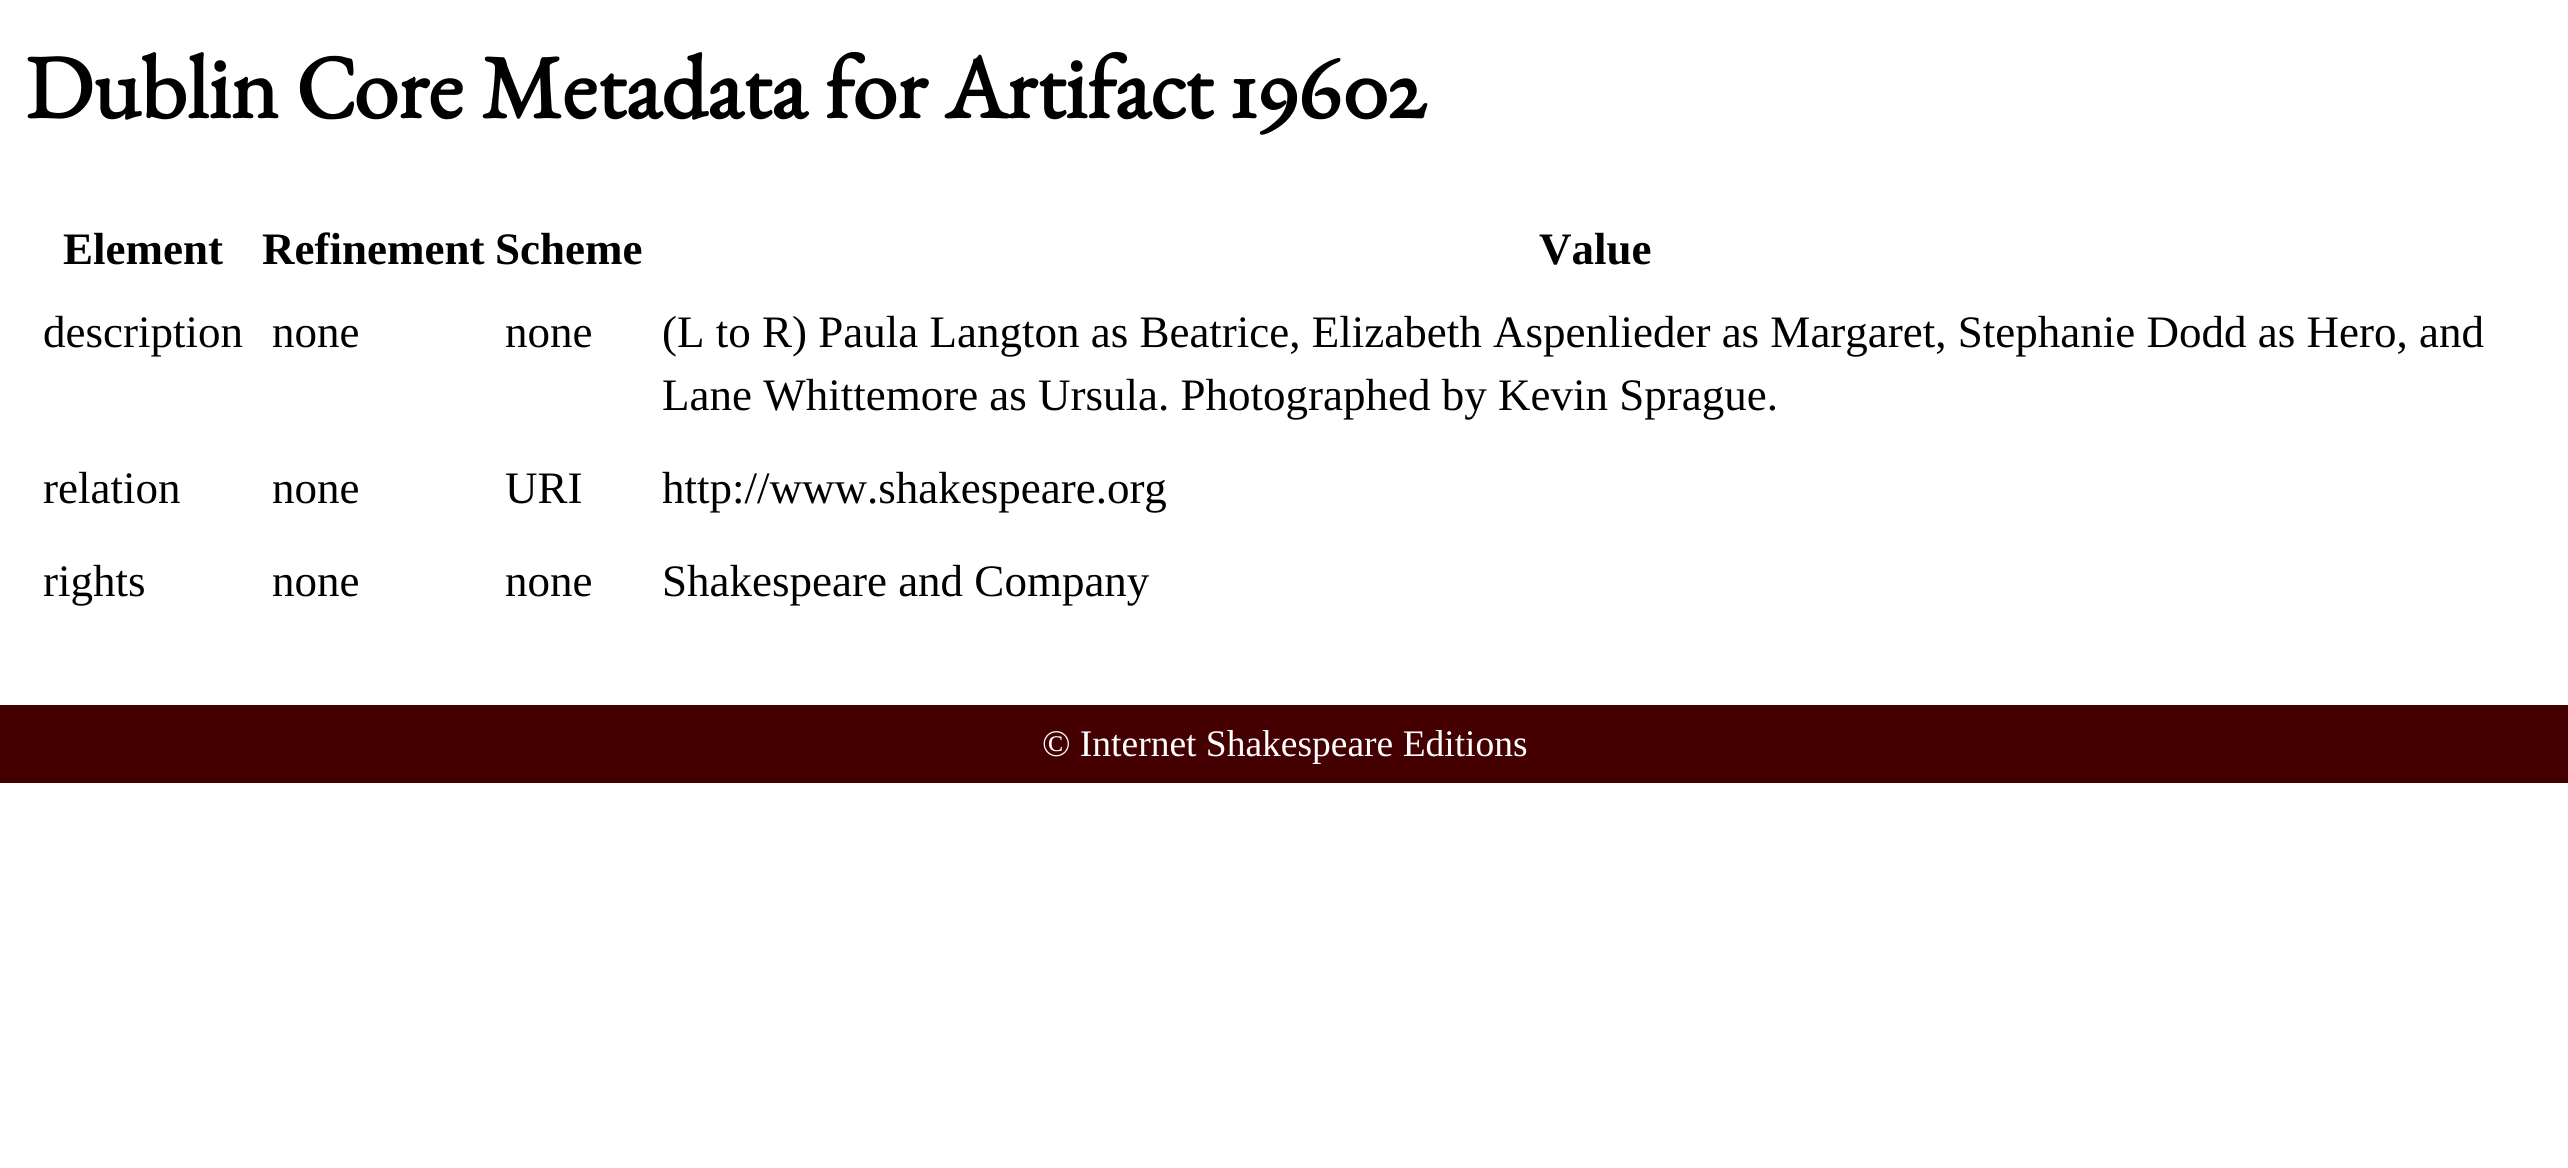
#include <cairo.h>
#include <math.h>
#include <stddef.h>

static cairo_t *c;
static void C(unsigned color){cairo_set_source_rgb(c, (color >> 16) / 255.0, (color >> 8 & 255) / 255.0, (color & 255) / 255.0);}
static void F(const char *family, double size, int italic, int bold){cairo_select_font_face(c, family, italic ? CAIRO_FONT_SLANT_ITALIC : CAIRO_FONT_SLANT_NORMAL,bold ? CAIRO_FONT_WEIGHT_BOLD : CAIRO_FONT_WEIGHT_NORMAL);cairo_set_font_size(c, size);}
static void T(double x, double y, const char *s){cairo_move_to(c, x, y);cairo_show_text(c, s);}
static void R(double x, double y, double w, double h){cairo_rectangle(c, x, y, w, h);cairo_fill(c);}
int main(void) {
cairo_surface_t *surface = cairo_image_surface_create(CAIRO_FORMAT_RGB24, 2568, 1168);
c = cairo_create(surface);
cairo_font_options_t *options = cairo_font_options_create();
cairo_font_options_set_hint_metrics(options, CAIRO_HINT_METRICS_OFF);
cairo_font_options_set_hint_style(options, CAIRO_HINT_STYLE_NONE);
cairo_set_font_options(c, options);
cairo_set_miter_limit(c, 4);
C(0xffffff);
cairo_paint(c);
F("EB Garamond",90,0,1);
C(0x000000);
T(25,118,"Dublin Core Metadata for Artifact 19602");
F("Liberation Serif",45,0,1);
T(63,264,"Element");
T(262,264,"Refinement");
T(495,264,"Scheme");
T(1539,264,"Value");
F("Liberation Serif",45,0,0);
T(43,347,"description");
T(272,347,"none");
T(505,347,"none");
T(662,347,"(L to R) Paula Langton as Beatrice, Elizabeth Aspenlieder as Margaret, Stephanie Dodd as Hero, and");
T(662,410,"Lane Whittemore as Ursula. Photographed by Kevin Sprague.");
T(43,503,"relation");
T(272,503,"none");
T(505,503,"URI");
T(662,503,"http://www.shakespeare.org");
T(43,596,"rights");
T(272,596,"none");
T(505,596,"none");
T(662,596,"Shakespeare and Company");
C(0x440000);
R(0,705,2568,78);
F("Liberation Serif",37.5,0,0);
C(0xffffff);
T(1042,756,"© Internet Shakespeare Editions");
cairo_surface_write_to_png(surface, "o.png");
cairo_font_options_destroy(options);
cairo_destroy(c);
cairo_surface_destroy(surface);
return 0;
}
